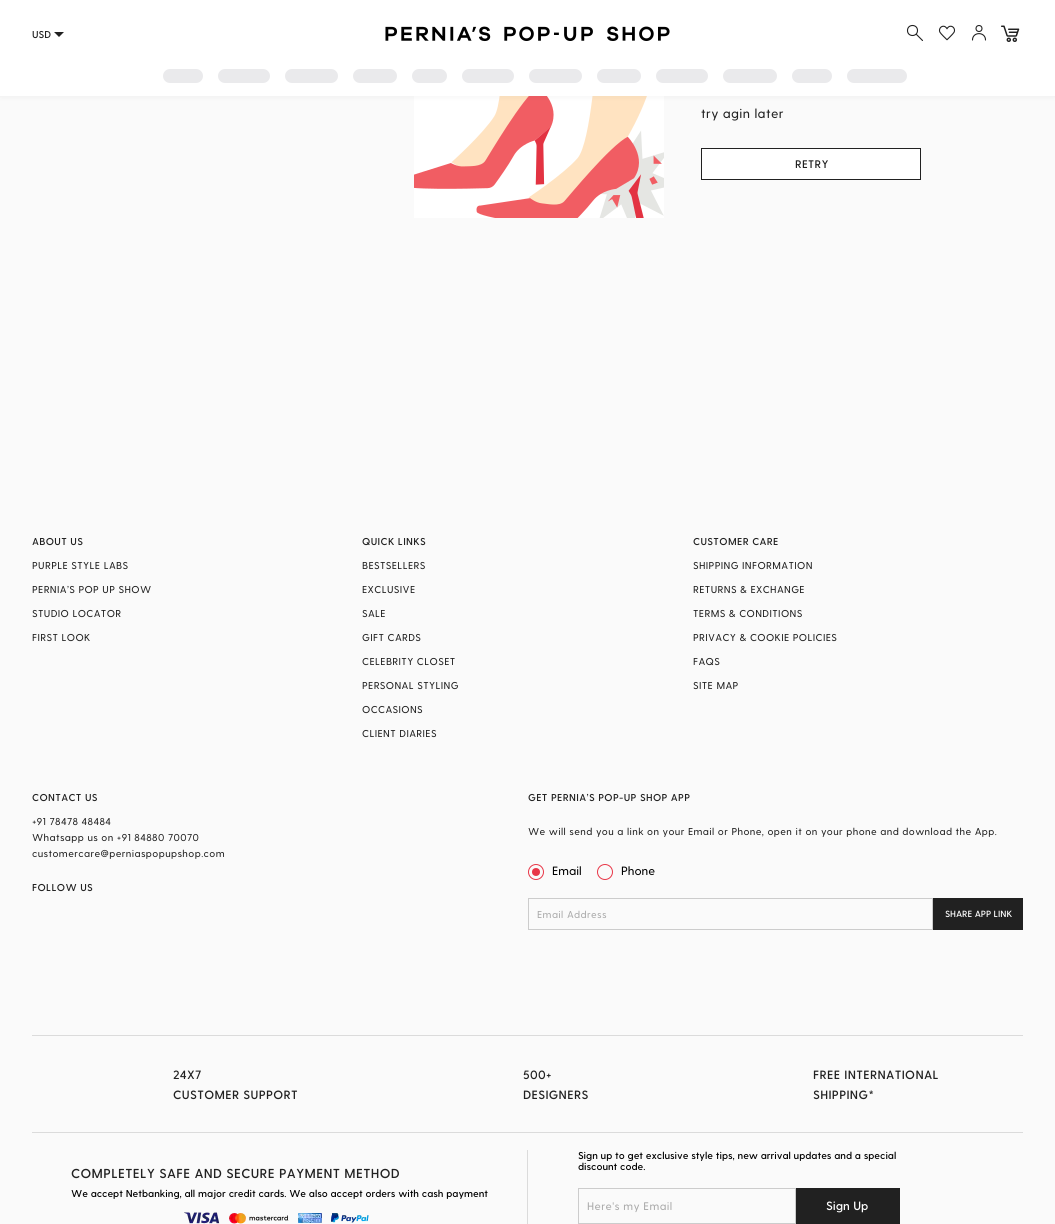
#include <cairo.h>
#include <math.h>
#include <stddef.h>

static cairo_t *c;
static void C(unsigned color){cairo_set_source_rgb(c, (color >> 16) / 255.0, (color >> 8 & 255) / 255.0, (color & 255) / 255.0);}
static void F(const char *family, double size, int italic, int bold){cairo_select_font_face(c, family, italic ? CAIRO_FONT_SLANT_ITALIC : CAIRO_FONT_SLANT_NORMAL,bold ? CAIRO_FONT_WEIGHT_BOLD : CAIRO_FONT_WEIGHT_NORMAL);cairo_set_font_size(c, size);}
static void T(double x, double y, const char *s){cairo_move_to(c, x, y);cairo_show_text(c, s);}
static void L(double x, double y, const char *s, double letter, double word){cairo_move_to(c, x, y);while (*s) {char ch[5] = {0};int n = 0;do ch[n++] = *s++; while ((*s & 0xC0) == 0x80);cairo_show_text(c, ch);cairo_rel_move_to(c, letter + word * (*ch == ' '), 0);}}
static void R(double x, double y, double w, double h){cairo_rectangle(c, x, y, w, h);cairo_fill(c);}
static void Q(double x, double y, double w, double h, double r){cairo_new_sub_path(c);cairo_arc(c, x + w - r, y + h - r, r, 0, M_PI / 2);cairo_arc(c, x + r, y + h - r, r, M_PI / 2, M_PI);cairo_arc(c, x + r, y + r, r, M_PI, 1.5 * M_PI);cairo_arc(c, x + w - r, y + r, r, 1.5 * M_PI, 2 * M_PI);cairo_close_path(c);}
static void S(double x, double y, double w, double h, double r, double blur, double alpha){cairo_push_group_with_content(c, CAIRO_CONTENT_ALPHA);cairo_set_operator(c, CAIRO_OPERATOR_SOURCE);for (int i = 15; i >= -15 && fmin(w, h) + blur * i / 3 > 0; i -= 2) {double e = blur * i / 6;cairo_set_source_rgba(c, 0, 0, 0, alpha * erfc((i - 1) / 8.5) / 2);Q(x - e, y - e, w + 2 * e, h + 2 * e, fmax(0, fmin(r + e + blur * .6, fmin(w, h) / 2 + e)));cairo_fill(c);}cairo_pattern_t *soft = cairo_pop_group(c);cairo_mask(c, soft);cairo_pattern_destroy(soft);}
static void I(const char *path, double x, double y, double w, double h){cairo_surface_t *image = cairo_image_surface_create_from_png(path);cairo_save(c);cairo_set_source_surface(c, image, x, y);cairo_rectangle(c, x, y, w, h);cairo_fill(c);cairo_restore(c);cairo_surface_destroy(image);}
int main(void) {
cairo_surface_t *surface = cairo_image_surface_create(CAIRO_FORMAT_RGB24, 1055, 1224);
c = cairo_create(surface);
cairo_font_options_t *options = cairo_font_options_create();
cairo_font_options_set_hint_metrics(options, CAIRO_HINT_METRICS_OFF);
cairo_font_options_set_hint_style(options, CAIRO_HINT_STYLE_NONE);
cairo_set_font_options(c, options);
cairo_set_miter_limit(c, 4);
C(0xfafafa);
cairo_paint(c);
I("4.png",414,96,250,122);
C(0x000000);
S(0,-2,1055,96,0,4,.1);
C(0xffffff);
R(0,0,1055,96);
F("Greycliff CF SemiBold",10,0,0);
C(0x212121);
T(32,38,"USD");
cairo_new_path(c);
cairo_move_to(c,54,32);
cairo_line_to(c,64,32);
cairo_line_to(c,59,37);
cairo_close_path(c);
cairo_fill(c);
I("1.png",385,26,285,16);
cairo_new_path(c);
cairo_move_to(c,916.5,34.5);
cairo_line_to(c,922.5,40.5);
cairo_set_line_width(c,1.1);
cairo_set_line_cap(c,CAIRO_LINE_CAP_ROUND);
cairo_stroke(c);
cairo_arc(c,912.5,30.5,5,0,2 * M_PI);
cairo_set_line_cap(c,CAIRO_LINE_CAP_BUTT);
cairo_stroke(c);
I("2.png",938,25,18,16);
cairo_arc(c,979,28.5,3,0,2 * M_PI);
cairo_stroke(c);
cairo_new_path(c);
cairo_move_to(c,985.5,40);
cairo_curve_to(c,985.5,31.5,972.5,31.5,972.5,40);
cairo_set_line_cap(c,CAIRO_LINE_CAP_ROUND);
cairo_set_line_join(c,CAIRO_LINE_JOIN_ROUND);
cairo_stroke(c);
I("3.png",1001,25,19,17);
C(0xeaeaec);
Q(163,69,40,14,7);
cairo_fill(c);
Q(218,69,52,14,7);
cairo_fill(c);
Q(285,69,53,14,7);
cairo_fill(c);
Q(353,69,44,14,7);
cairo_fill(c);
Q(412,69,35,14,7);
cairo_fill(c);
Q(462,69,52,14,7);
cairo_fill(c);
Q(529,69,53,14,7);
cairo_fill(c);
Q(597,69,44,14,7);
cairo_fill(c);
Q(656,69,52,14,7);
cairo_fill(c);
Q(723,69,54,14,7);
cairo_fill(c);
Q(792,69,40,14,7);
cairo_fill(c);
Q(847,69,60,14,7);
cairo_fill(c);
F("Greycliff CF Medium",13,0,0);
C(0x212121);
L(701,118,"try agin later",.4,0);
C(0xffffff);
cairo_rectangle(c,701.5,148.5,219,31);
cairo_fill_preserve(c);
C(0x212121);
cairo_set_line_width(c,1);
cairo_set_line_cap(c,CAIRO_LINE_CAP_BUTT);
cairo_set_line_join(c,CAIRO_LINE_JOIN_MITER);
cairo_stroke(c);
F("Greycliff CF SemiBold",11,0,0);
L(795,168,"RETRY",.4,0);
F("Greycliff CF SemiBold",10,0,0);
L(32,545,"ABOUT US",.4,0);
F("Greycliff CF Medium",10,0,0);
L(32,569,"PURPLE STYLE LABS",.4,0);
L(32,593,"PERNIA’S POP UP SHOW",.4,0);
L(32,617,"STUDIO LOCATOR",.4,0);
L(32,641,"FIRST LOOK",.4,0);
F("Greycliff CF SemiBold",10,0,0);
L(362,545,"QUICK LINKS",.4,0);
F("Greycliff CF Medium",10,0,0);
L(362,569,"BESTSELLERS",.4,0);
L(362,593,"EXCLUSIVE",.4,0);
L(362,617,"SALE",.4,0);
L(362,641,"GIFT CARDS",.4,0);
L(362,665,"CELEBRITY CLOSET",.4,0);
L(362,689,"PERSONAL STYLING",.4,0);
L(362,713,"OCCASIONS",.4,0);
L(362,737,"CLIENT DIARIES",.4,0);
F("Greycliff CF SemiBold",10,0,0);
L(693,545,"CUSTOMER CARE",.4,0);
F("Greycliff CF Medium",10,0,0);
L(693,569,"SHIPPING INFORMATION",.4,0);
L(693,593,"RETURNS & EXCHANGE",.4,0);
L(693,617,"TERMS & CONDITIONS",.4,0);
L(693,641,"PRIVACY & COOKIE POLICIES",.4,0);
L(693,665,"FAQS",.4,0);
L(693,689,"SITE MAP",.4,0);
F("Greycliff CF SemiBold",10,0,0);
L(32,801,"CONTACT US",.4,0);
F("Greycliff CF Medium",10,0,0);
L(32,825,"+91 78478 48484",.4,0);
L(32,841,"Whatsapp us on +91 84880 70070",.4,0);
L(32,857,"customercare@perniaspopupshop.com",.4,0);
F("Greycliff CF SemiBold",10,0,0);
L(32,891,"FOLLOW US",.4,0);
L(528,801,"GET PERNIA’S POP-UP SHOP APP",.4,0);
F("Greycliff CF Medium",10,0,0);
L(528,835,"We will send you a link on your Email or Phone, open it on your phone and download the App.",.4,0);
cairo_new_path(c);
cairo_arc(c,536,872,7.5,0,2 * M_PI);
C(0xe83647);
cairo_stroke(c);
F("Greycliff CF Medium",12,0,0);
C(0x000000);
T(552,875,"Email");
C(0xe83647);
cairo_new_path(c);
cairo_arc(c,536,872,4,0,2 * M_PI);
cairo_fill(c);
cairo_arc(c,605,872,7.5,0,2 * M_PI);
cairo_stroke(c);
C(0x000000);
T(621,875,"Phone");
cairo_rectangle(c,528.5,898.5,404,31);
C(0xcccccc);
cairo_stroke(c);
F("Greycliff CF Medium",10,0,0);
C(0xaaaaaa);
L(537,918,"Email Address",.4,0);
C(0x212121);
R(933,898,90,32);
F("Greycliff CF SemiBold",9,0,0);
C(0xffffff);
T(945,917,"SHARE APP LINK");
C(0xdbdbdb);
R(32,1035,991,1);
R(32,1132,991,1);
F("Greycliff CF SemiBold",12,0,0);
C(0x212121);
L(173,1079,"24X7",.4,0);
L(173,1099,"CUSTOMER SUPPORT",.4,0);
L(523,1079,"500+",.4,0);
L(523,1099,"DESIGNERS",.4,0);
L(813,1079,"FREE INTERNATIONAL",.4,0);
L(813,1099,"SHIPPING*",.4,0);
F("Greycliff CF SemiBold",13,0,0);
L(71,1178,"COMPLETELY SAFE AND SECURE PAYMENT METHOD",.4,0);
F("Greycliff CF SemiBold",10,0,0);
C(0x000000);
T(71,1197,"We accept Netbanking, all major credit cards. We also accept orders with cash payment");
I("5.png",184,1212,36,12);
I("6.png",229,1213,60,11);
I("7.png",298,1213,24,10);
I("8.png",331,1213,38,10);
C(0xdbdbdb);
R(527,1150,1,74);
C(0x000000);
T(578,1159,"Sign up to get exclusive style tips, new arrival updates and a special");
T(578,1170,"discount code.");
cairo_rectangle(c,578.5,1188.5,217,35);
C(0xcccccc);
cairo_stroke(c);
F("Greycliff CF Medium",11,0,0);
C(0xaaaaaa);
L(587,1210,"Here's my Email",.4,0);
C(0x212121);
R(796,1188,104,36);
F("Greycliff CF SemiBold",12,0,0);
C(0xffffff);
T(826,1210,"Sign Up");
cairo_surface_write_to_png(surface, "o.png");
cairo_font_options_destroy(options);
cairo_destroy(c);
cairo_surface_destroy(surface);
return 0;
}
